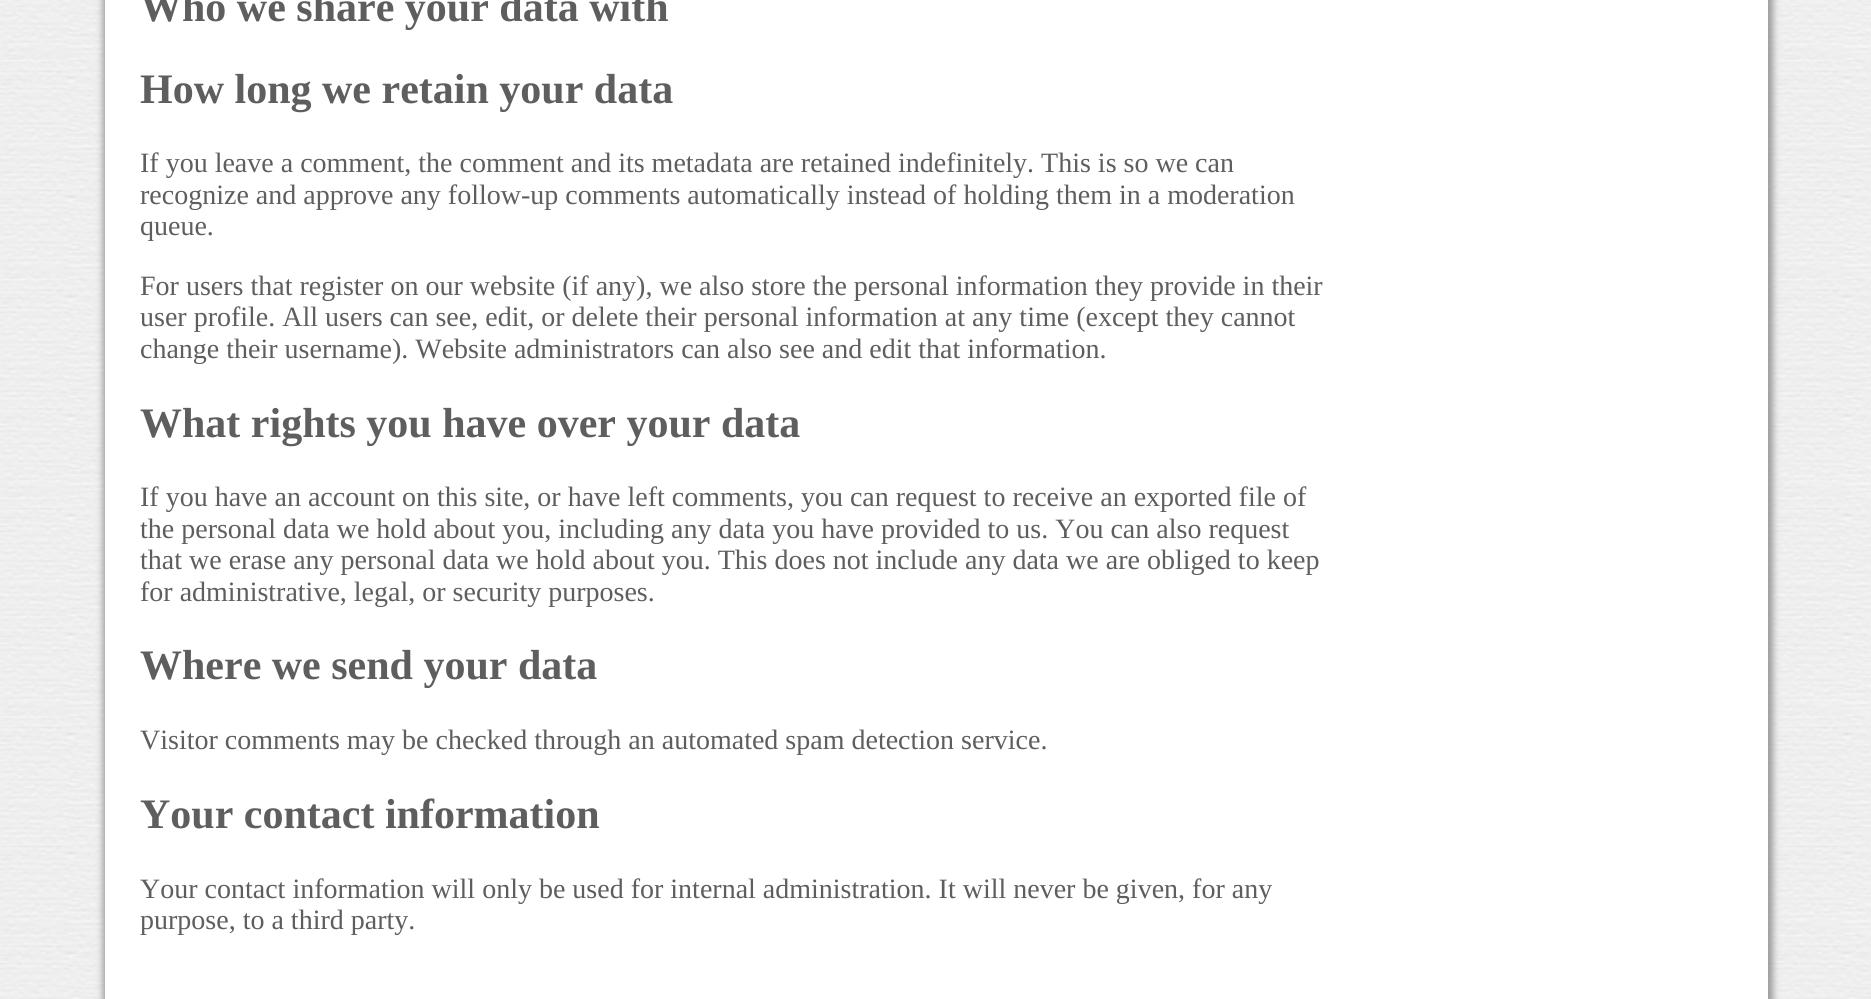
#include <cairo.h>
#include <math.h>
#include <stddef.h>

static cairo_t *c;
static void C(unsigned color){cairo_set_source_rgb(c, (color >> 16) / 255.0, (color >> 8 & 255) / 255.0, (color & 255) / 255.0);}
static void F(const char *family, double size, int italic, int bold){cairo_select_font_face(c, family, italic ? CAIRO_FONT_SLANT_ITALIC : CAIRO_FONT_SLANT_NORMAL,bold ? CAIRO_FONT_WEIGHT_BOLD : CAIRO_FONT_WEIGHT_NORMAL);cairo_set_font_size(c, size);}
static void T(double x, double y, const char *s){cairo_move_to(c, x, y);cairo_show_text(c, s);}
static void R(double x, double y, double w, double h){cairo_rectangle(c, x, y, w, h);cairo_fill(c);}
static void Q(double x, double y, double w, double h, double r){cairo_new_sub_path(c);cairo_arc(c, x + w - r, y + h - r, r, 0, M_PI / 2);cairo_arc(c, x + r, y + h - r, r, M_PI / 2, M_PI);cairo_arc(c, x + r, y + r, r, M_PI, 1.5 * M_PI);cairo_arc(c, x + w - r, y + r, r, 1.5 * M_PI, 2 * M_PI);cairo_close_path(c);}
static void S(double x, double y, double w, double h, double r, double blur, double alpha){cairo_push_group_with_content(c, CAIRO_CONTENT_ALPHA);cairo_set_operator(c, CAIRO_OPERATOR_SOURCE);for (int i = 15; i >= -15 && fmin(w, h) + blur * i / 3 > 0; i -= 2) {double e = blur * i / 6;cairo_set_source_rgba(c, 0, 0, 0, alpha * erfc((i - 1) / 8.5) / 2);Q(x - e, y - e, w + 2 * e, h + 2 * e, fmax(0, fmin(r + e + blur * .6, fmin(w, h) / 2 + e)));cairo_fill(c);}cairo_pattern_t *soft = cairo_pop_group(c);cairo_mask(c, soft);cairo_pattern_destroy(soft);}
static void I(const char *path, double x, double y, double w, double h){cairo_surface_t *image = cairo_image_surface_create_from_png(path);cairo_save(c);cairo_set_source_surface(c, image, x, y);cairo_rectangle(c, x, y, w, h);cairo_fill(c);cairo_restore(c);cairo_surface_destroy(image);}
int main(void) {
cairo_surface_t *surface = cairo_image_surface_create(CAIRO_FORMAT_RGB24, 1871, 999);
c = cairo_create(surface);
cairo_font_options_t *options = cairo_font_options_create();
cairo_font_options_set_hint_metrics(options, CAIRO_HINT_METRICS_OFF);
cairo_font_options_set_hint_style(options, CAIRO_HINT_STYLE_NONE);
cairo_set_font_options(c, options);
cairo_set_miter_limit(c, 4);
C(0xffffff);
cairo_paint(c);
I("1.png",0,0,1871,999);
C(0x999999);
S(103,-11,1670,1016,0,3.5,1);
C(0xffffff);
R(105,0,1663,999);
F("Liberation Serif",42,0,1);
C(0x5e5e5e);
T(140,21,"Who we share your data with");
T(140,103,"How long we retain your data");
F("Liberation Serif",28,0,0);
T(140,172,"If you leave a comment, the comment and its metadata are retained indefinitely. This is so we can");
T(140,204,"recognize and approve any follow-up comments automatically instead of holding them in a moderation");
T(140,235,"queue.");
T(140,295,"For users that register on our website (if any), we also store the personal information they provide in their");
T(140,326,"user profile. All users can see, edit, or delete their personal information at any time (except they cannot");
T(140,358,"change their username). Website administrators can also see and edit that information.");
F("Liberation Serif",42,0,1);
T(140,437,"What rights you have over your data");
F("Liberation Serif",28,0,0);
T(140,506,"If you have an account on this site, or have left comments, you can request to receive an exported file of");
T(140,538,"the personal data we hold about you, including any data you have provided to us. You can also request");
T(140,569,"that we erase any personal data we hold about you. This does not include any data we are obliged to keep");
T(140,601,"for administrative, legal, or security purposes.");
F("Liberation Serif",42,0,1);
T(140,679,"Where we send your data");
F("Liberation Serif",28,0,0);
T(140,749,"Visitor comments may be checked through an automated spam detection service.");
F("Liberation Serif",42,0,1);
T(140,828,"Your contact information");
F("Liberation Serif",28,0,0);
T(140,898,"Your contact information will only be used for internal administration. It will never be given, for any");
T(140,929,"purpose, to a third party.");
cairo_surface_write_to_png(surface, "o.png");
cairo_font_options_destroy(options);
cairo_destroy(c);
cairo_surface_destroy(surface);
return 0;
}
